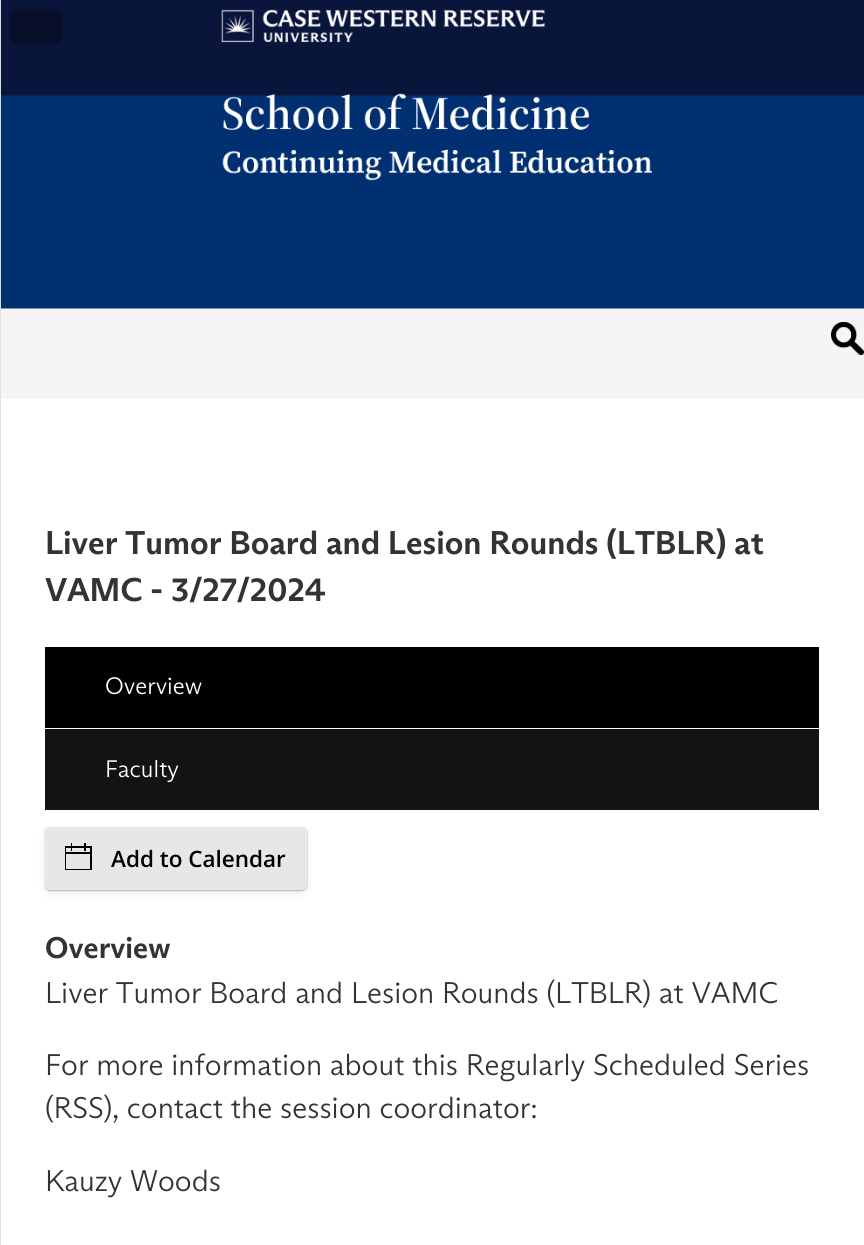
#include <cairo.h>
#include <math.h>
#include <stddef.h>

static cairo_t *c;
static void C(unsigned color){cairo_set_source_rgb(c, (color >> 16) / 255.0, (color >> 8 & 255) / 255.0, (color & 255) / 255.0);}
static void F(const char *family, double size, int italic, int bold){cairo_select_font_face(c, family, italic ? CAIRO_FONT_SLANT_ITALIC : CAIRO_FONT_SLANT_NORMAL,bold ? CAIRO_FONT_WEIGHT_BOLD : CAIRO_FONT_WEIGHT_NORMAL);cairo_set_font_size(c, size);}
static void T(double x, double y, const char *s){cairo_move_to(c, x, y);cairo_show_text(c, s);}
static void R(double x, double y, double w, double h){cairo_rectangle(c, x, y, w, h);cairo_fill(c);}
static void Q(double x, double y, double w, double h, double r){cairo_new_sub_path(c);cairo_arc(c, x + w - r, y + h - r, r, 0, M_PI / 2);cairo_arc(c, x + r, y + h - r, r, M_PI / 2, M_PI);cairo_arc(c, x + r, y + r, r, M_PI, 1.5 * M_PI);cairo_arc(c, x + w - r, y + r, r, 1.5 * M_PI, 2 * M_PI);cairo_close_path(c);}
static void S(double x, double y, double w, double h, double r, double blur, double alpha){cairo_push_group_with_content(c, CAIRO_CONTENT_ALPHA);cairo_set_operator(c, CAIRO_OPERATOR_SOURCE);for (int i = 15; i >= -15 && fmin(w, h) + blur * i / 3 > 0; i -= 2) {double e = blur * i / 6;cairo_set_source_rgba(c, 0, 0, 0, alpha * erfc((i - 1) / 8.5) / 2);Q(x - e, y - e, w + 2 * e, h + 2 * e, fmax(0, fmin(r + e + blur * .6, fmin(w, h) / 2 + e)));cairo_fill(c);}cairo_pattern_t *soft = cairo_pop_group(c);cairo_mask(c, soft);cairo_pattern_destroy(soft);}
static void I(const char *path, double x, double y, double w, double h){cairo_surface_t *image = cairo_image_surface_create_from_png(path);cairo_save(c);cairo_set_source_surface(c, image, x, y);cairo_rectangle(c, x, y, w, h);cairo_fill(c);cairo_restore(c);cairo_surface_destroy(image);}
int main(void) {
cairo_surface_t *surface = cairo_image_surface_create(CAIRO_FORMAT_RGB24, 864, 1245);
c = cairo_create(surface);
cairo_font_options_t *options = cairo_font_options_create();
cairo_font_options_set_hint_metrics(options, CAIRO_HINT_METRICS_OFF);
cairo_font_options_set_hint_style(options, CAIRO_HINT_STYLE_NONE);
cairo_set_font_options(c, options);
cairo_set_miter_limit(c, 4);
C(0xffffff);
cairo_paint(c);
C(0xdfdfdf);
R(0,0,1,1245);
I("1.png",1,0,863,309);
C(0x070f2a);
Q(9,9,54,36,9);
cairo_fill(c);
I("2.png",221,9,431,172);
C(0xf5f5f5);
R(1,309,863,90);
I("3.png",831,322,33,33);
F("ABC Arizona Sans",33,0,1);
C(0x333333);
T(45,554,"Liver Tumor Board and Lesion Rounds (LTBLR) at");
T(45,601,"VAMC - 3/27/2024");
C(0x000000);
R(45,647,774,81);
F("ABC Arizona Sans Light",24,0,0);
C(0xffffff);
T(105,694,"Overview");
C(0x131313);
R(45,729,774,81);
C(0xffffff);
T(105,777,"Faculty");
C(0x000000);
S(45,828,261,63,5,1.5,.08);
S(45,828,261,63,5,1,.07);
C(0x32325d);
S(45,830,261,63,5,4,.1);
Q(45.4,827.4,262.2,63.2,5.6);
cairo_set_source_rgba(c,0.196,0.196,0.365,0.17);
cairo_set_line_width(c,.8);
cairo_stroke(c);
C(0xe7e7e7);
Q(45,827,261,63,5);
cairo_fill(c);
I("4.png",65,843,27,27);
F("Open Sans SemiBold",22.5,0,0);
C(0x000000);
T(111,867,"Add to Calendar");
F("ABC Arizona Sans",30,0,1);
C(0x333333);
T(45,958,"Overview");
F("ABC Arizona Sans Light",30,0,0);
T(45,1003,"Liver Tumor Board and Lesion Rounds (LTBLR) at VAMC");
T(45,1075,"For more information about this Regularly Scheduled Series");
T(45,1118,"(RSS), contact the session coordinator:");
T(45,1191,"Kauzy Woods");
cairo_surface_write_to_png(surface, "o.png");
cairo_font_options_destroy(options);
cairo_destroy(c);
cairo_surface_destroy(surface);
return 0;
}
